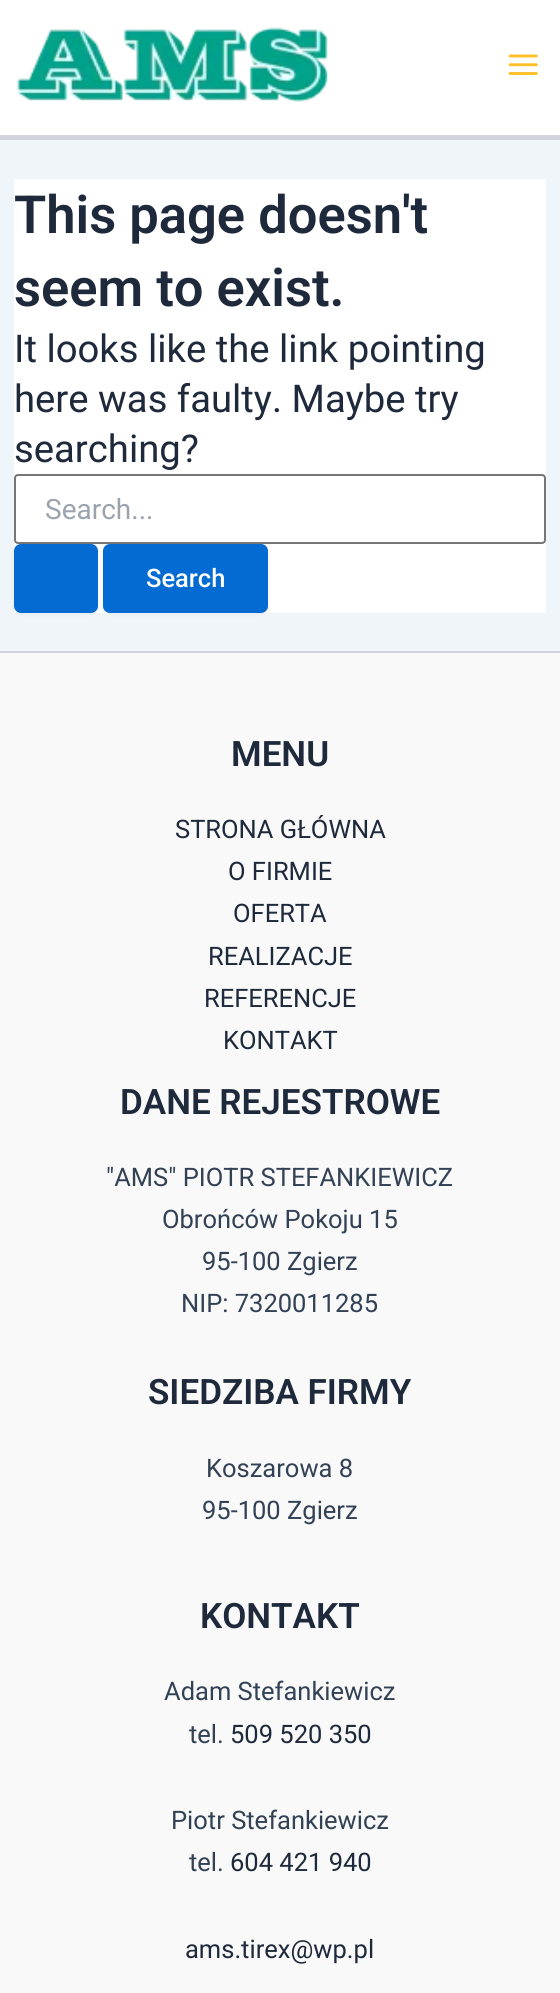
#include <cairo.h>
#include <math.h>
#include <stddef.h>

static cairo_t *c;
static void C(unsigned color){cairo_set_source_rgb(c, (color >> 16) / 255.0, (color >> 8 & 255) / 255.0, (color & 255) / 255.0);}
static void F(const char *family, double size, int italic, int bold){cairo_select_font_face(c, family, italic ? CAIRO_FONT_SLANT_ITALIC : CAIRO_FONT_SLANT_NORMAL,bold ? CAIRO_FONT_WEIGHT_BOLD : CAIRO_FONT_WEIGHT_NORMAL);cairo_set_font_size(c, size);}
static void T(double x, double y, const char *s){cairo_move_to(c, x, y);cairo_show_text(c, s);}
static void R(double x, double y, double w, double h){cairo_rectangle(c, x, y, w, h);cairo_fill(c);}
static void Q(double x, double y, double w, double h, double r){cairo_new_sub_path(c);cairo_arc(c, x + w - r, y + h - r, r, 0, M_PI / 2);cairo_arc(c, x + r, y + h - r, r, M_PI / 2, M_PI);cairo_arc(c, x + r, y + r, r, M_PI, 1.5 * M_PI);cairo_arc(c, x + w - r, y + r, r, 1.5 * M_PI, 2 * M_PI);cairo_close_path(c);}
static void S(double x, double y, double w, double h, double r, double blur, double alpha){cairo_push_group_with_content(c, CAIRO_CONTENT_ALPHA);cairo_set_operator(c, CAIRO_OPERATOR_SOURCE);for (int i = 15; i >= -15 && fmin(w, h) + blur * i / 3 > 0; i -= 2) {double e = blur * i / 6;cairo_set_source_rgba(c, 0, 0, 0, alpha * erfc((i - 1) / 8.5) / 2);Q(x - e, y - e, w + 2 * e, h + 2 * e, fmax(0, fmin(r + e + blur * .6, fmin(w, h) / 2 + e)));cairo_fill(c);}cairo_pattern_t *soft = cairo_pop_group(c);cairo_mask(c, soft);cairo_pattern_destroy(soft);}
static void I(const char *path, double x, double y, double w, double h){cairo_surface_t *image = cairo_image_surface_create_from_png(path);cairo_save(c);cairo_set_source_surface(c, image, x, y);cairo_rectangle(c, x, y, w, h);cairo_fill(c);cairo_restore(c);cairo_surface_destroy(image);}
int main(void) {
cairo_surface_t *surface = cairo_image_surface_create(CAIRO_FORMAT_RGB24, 560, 1993);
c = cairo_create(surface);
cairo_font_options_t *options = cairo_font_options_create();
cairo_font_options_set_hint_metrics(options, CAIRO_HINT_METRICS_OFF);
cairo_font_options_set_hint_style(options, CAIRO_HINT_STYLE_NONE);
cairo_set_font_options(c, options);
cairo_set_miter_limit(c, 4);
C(0xf0f5fa);
cairo_paint(c);
C(0xffffff);
R(0,0,560,135);
C(0xd1d5db);
R(0,135,560,5);
I("1.png",17,27,311,75);
I("2.png",508,54,30,21);
C(0xffffff);
R(14,179,532,434);
F("Roboto SemiBold",52.5,0,0);
C(0x1e293b);
T(14,233,"This page doesn't");
T(14,306,"seem to exist.");
F("Roboto",38.25,0,0);
T(14,362,"It looks like the link pointing");
T(14,412,"here was faulty. Maybe try");
T(14,462,"searching?");
Q(15,475,530,68,3);
C(0x767676);
cairo_stroke(c);
F("Roboto",28,0,0);
C(0x9ca3af);
T(45,519,"Search...");
C(0x000000);
S(14,546,84,68,7,2,.05);
C(0x046bd2);
Q(14,544,84,69,7);
cairo_fill(c);
C(0x000000);
S(103,546,165,68,7,2,.05);
C(0x046bd2);
Q(103,544,165,69,7);
cairo_fill(c);
F("Roboto Medium",25.5,0,0);
C(0xffffff);
T(146,587,"Search");
C(0xf9f9f9);
R(0,653,560,1340);
C(0xd1d5db);
R(0,651,560,2);
F("Roboto SemiBold",35,0,0);
C(0x1e293b);
T(231,766,"MENU");
F("Roboto",25.5,0,0);
T(175,838,"STRONA GŁÓWNA");
T(228,880,"O FIRMIE");
T(233,922,"OFERTA");
T(208,965,"REALIZACJE");
T(204,1007,"REFERENCJE");
T(223,1049,"KONTAKT");
F("Roboto SemiBold",35,0,0);
T(120,1114,"DANE REJESTROWE");
F("Roboto",25.5,0,0);
C(0x334155);
T(106,1186,"\"AMS\" PIOTR STEFANKIEWICZ");
T(162,1228,"Obrońców Pokoju 15");
T(202,1270,"95-100 Zgierz");
T(181,1312,"NIP: 7320011285");
F("Roboto SemiBold",35,0,0);
C(0x1e293b);
T(148,1404,"SIEDZIBA FIRMY");
F("Roboto",25.5,0,0);
C(0x334155);
T(206,1477,"Koszarowa 8");
T(202,1519,"95-100 Zgierz");
F("Roboto SemiBold",35,0,0);
C(0x1e293b);
T(200,1628,"KONTAKT");
F("Roboto",25.5,0,0);
C(0x334155);
T(164,1700,"Adam Stefankiewicz");
T(189,1743,"tel.");
C(0x1e293b);
T(230,1743,"509 520 350");
C(0x334155);
T(171,1829,"Piotr Stefankiewicz");
T(189,1871,"tel.");
C(0x1e293b);
T(230,1871,"604 421 940");
T(185,1958,"ams.tirex@wp.pl");
cairo_surface_write_to_png(surface, "o.png");
cairo_font_options_destroy(options);
cairo_destroy(c);
cairo_surface_destroy(surface);
return 0;
}
